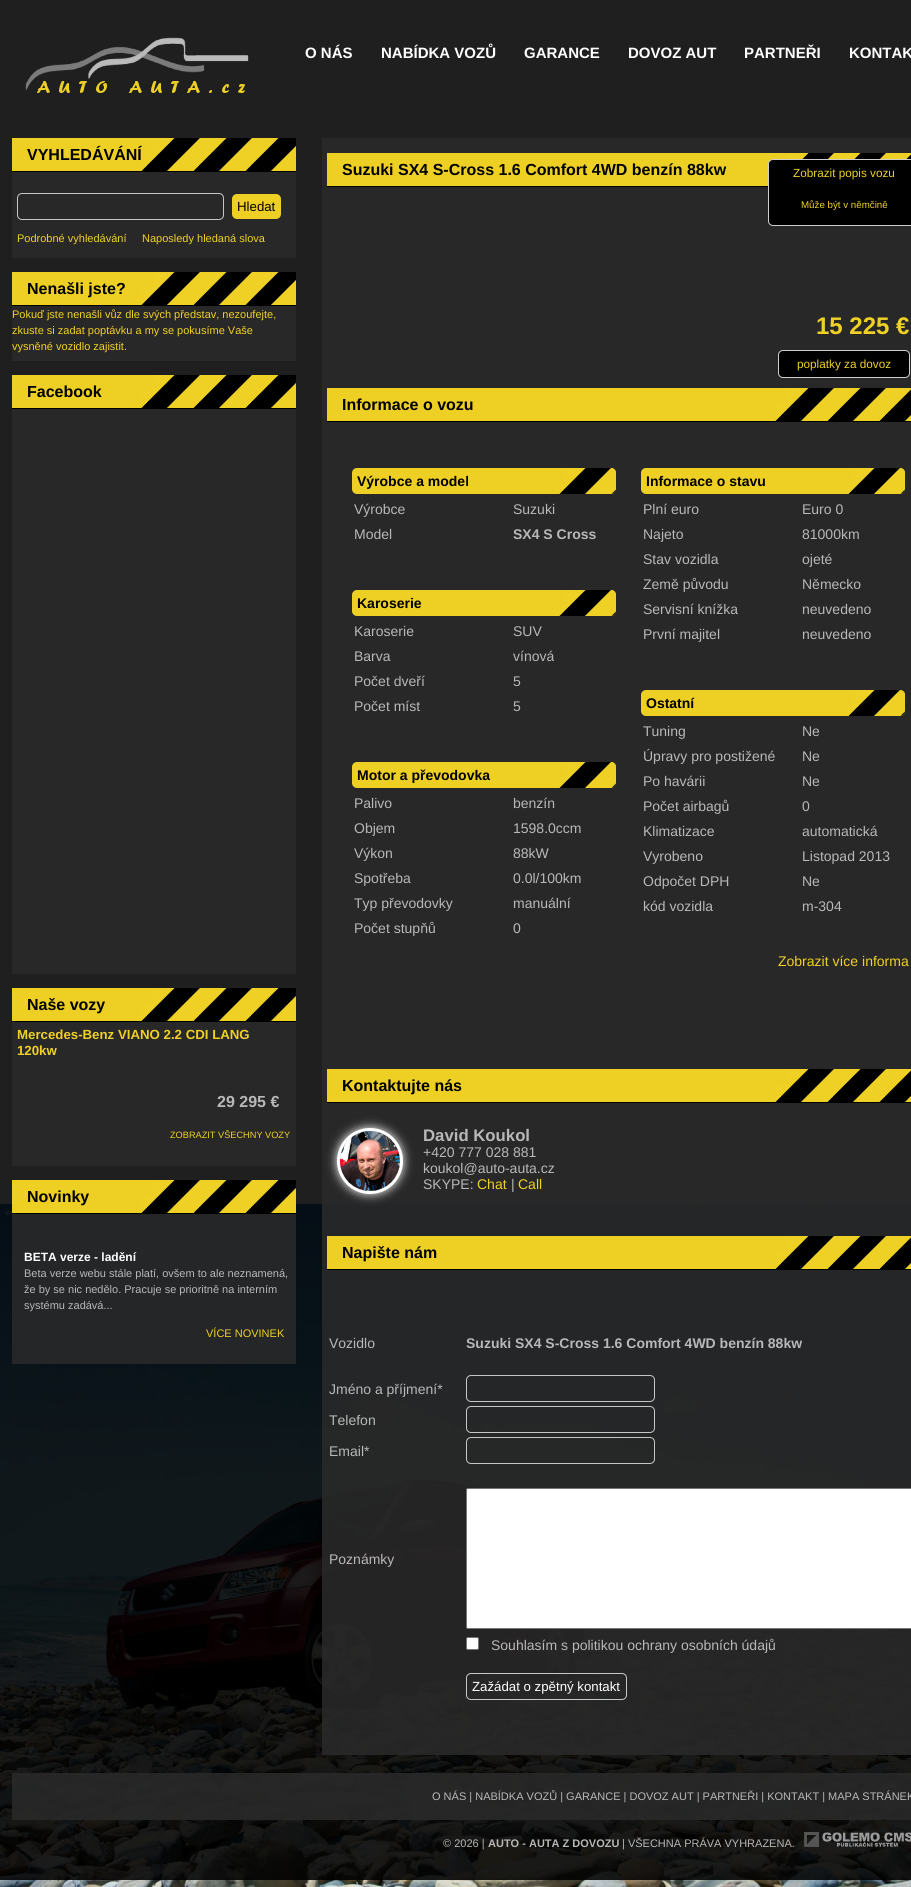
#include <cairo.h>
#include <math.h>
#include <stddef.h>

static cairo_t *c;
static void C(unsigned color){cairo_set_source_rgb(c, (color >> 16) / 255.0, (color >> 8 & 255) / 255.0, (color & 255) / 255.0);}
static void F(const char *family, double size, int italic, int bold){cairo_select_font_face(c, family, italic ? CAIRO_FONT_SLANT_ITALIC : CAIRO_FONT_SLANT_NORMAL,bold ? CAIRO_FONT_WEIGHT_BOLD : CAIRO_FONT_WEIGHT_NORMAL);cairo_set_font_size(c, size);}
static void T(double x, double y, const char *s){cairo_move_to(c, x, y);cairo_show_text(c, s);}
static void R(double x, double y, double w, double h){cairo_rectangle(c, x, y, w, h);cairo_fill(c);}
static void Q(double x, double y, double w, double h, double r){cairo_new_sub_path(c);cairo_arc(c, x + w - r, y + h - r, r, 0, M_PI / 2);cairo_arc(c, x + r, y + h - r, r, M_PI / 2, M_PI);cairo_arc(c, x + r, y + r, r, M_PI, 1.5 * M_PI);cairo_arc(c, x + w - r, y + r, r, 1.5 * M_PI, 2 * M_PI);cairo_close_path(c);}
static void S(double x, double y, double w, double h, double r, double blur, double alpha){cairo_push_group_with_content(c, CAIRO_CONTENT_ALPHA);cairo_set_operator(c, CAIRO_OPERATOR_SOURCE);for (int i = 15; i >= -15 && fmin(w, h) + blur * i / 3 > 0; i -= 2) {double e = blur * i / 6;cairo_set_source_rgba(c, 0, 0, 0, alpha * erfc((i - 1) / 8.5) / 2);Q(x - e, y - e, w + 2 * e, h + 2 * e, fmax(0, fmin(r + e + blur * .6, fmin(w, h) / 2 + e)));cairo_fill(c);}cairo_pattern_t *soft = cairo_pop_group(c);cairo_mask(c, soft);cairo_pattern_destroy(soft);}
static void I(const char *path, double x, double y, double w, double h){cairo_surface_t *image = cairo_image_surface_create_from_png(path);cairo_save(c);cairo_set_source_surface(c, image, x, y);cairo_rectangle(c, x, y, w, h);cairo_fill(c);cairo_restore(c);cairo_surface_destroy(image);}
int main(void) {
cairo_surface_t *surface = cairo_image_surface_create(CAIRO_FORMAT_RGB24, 911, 1887);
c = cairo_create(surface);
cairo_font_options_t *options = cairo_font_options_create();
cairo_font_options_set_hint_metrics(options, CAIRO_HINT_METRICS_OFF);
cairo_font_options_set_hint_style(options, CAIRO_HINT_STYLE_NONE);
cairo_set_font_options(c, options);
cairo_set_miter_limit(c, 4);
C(0xffffff);
cairo_paint(c);
C(0x1f1f1f);
R(0,0,911,1880);
I("1.png",0,1204,911,683);
I("2.png",25,37,224,56);
F("Liberation Sans",15,0,1);
C(0xffffff);
T(305,58,"O NÁS");
T(381,58,"NABÍDKA VOZŮ");
T(524,58,"GARANCE");
T(628,58,"DOVOZ AUT");
T(744,58,"PARTNEŘI");
T(849,58,"KONTAK");
C(0x282828);
R(12,172,284,86);
C(0xeed025);
R(12,138,129,33);
I("3.png",141,138,155,33);
C(0x000000);
R(12,171,284,1);
F("Liberation Sans",16,0,1);
T(27,160,"VYHLEDÁVÁNÍ");
Q(17.5,193.5,206,26,4.5);
C(0xc6c6c6);
cairo_set_line_width(c,1);
cairo_stroke(c);
C(0xeed025);
Q(232,194,49,25,5);
cairo_fill(c);
F("Liberation Sans",13.25,0,0);
C(0x000000);
T(237,211,"Hledat");
F("Liberation Sans",11,0,0);
C(0xefd125);
T(17,242,"Podrobné vyhledávání");
T(142,242,"Naposledy hledaná slova");
C(0x282828);
R(12,306,284,55);
C(0xeed025);
R(12,272,129,33);
I("3.png",141,272,155,33);
C(0x000000);
R(12,305,284,1);
F("Liberation Sans",16,0,1);
T(27,294,"Nenašli jste?");
F("Liberation Sans",11,0,0);
C(0xefd125);
T(12,318,"Pokuď jste nenašli vůz dle svých představ, nezoufejte,");
T(12,334,"zkuste si zadat poptávku a my se pokusíme Vaše");
T(12,350,"vysněné vozidlo zajistit.");
C(0x282828);
R(12,409,284,565);
C(0xeed025);
R(12,375,129,33);
I("3.png",141,375,155,33);
C(0x000000);
R(12,408,284,1);
F("Liberation Sans",16,0,1);
T(27,397,"Facebook");
C(0x282828);
R(12,1022,284,144);
C(0xeed025);
R(12,988,129,33);
I("3.png",141,988,155,33);
C(0x000000);
R(12,1021,284,1);
T(27,1010,"Naše vozy");
F("Liberation Sans",13.25,0,1);
C(0xefd125);
T(17,1039,"Mercedes-Benz VIANO 2.2 CDI LANG");
T(17,1055,"120kw");
F("Liberation Sans",16,0,1);
C(0xb8b8b8);
T(217,1107,"29 295 €");
F("Liberation Sans",9.2,0,0);
C(0xefd125);
T(170,1138,"ZOBRAZIT VŠECHNY VOZY");
cairo_set_source_rgba(c,0.161,0.161,0.161,0.88);
R(12,1214,284,150);
C(0xeed025);
R(12,1180,129,33);
I("3.png",141,1180,155,33);
C(0x000000);
R(12,1213,284,1);
F("Liberation Sans",16,0,1);
T(27,1202,"Novinky");
F("Liberation Sans",12,0,1);
C(0xffffff);
T(24,1261,"BETA verze - ladění");
F("Liberation Sans",11,0,0);
C(0xb8b8b8);
T(24,1277,"Beta verze webu stále platí, ovšem to ale neznamená,");
T(24,1293,"že by se nic nedělo. Pracuje se prioritně na interním");
T(24,1309,"systému zadává...");
C(0xefd125);
T(206,1337,"VÍCE NOVINEK");
cairo_set_source_rgba(c,0.161,0.161,0.161,0.88);
R(322,138,589,1617);
C(0xeed025);
R(327,153,448,33);
I("4.png",775,153,136,6);
C(0x000000);
R(327,186,441,1);
F("Liberation Sans",16,0,1);
T(342,175,"Suzuki SX4 S-Cross 1.6 Comfort 4WD benzín 88kw");
Q(768.5,159.5,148,66,4.5);
cairo_fill_preserve(c);
C(0xcfcfcf);
cairo_stroke(c);
F("Liberation Sans",11.75,0,0);
C(0xefd125);
T(793,177,"Zobrazit popis vozu");
F("Liberation Sans",9.75,0,0);
T(801,208,"Může být v němčině");
F("Liberation Sans",24,0,1);
T(816,334,"15 225 €");
C(0x000000);
Q(778.5,350.5,131,27,4.5);
cairo_fill_preserve(c);
C(0xcfcfcf);
cairo_stroke(c);
F("Liberation Sans",11.75,0,0);
C(0xefd125);
T(797,368,"poplatky za dovoz");
C(0xeed025);
R(327,388,448,33);
I("5.png",775,388,136,33);
C(0x000000);
R(327,421,584,1);
F("Liberation Sans",16,0,1);
T(342,410,"Informace o vozu");
C(0xeed025);
Q(352,468,264,26,5);
cairo_fill(c);
I("6.png",559,468,57,26);
F("Liberation Sans",14,0,1);
C(0x000000);
T(357,486,"Výrobce a model");
F("Liberation Sans",14,0,0);
C(0xb8b8b8);
T(354,514,"Výrobce");
T(513,514,"Suzuki");
T(354,539,"Model");
F("Liberation Sans",14,0,1);
T(513,539,"SX4 S Cross");
C(0xeed025);
Q(352,590,264,26,5);
cairo_fill(c);
I("6.png",559,590,57,26);
C(0x000000);
T(357,608,"Karoserie");
F("Liberation Sans",14,0,0);
C(0xb8b8b8);
T(354,636,"Karoserie");
T(513,636,"SUV");
T(354,661,"Barva");
T(513,661,"vínová");
T(354,686,"Počet dveří");
T(513,686,"5");
T(354,711,"Počet míst");
T(513,711,"5");
C(0xeed025);
Q(352,762,264,26,5);
cairo_fill(c);
I("6.png",559,762,57,26);
F("Liberation Sans",14,0,1);
C(0x000000);
T(357,780,"Motor a převodovka");
F("Liberation Sans",14,0,0);
C(0xb8b8b8);
T(354,808,"Palivo");
T(513,808,"benzín");
T(354,833,"Objem");
T(513,833,"1598.0ccm");
T(354,858,"Výkon");
T(513,858,"88kW");
T(354,883,"Spotřeba");
T(513,883,"0.0l/100km");
T(354,908,"Typ převodovky");
T(513,908,"manuální");
T(354,933,"Počet stupňů");
T(513,933,"0");
C(0xeed025);
Q(641,468,264,26,5);
cairo_fill(c);
I("6.png",848,468,57,26);
F("Liberation Sans",14,0,1);
C(0x000000);
T(646,486,"Informace o stavu");
F("Liberation Sans",14,0,0);
C(0xb8b8b8);
T(643,514,"Plní euro");
T(802,514,"Euro 0");
T(643,539,"Najeto");
T(802,539,"81000km");
T(643,564,"Stav vozidla");
T(802,564,"ojeté");
T(643,589,"Země původu");
T(802,589,"Německo");
T(643,614,"Servisní knížka");
T(802,614,"neuvedeno");
T(643,639,"První majitel");
T(802,639,"neuvedeno");
C(0xeed025);
Q(641,690,264,26,5);
cairo_fill(c);
I("6.png",848,690,57,26);
F("Liberation Sans",14,0,1);
C(0x000000);
T(646,708,"Ostatní");
F("Liberation Sans",14,0,0);
C(0xb8b8b8);
T(643,736,"Tuning");
T(802,736,"Ne");
T(643,761,"Úpravy pro postižené");
T(802,761,"Ne");
T(643,786,"Po havárii");
T(802,786,"Ne");
T(643,811,"Počet airbagů");
T(802,811,"0");
T(643,836,"Klimatizace");
T(802,836,"automatická");
T(643,861,"Vyrobeno");
T(802,861,"Listopad 2013");
T(643,886,"Odpočet DPH");
T(802,886,"Ne");
T(643,911,"kód vozidla");
T(802,911,"m-304");
C(0xefd125);
T(778,966,"Zobrazit více informa");
C(0xeed025);
R(327,1069,448,33);
I("5.png",775,1069,136,33);
C(0x000000);
R(327,1102,584,1);
F("Liberation Sans",16,0,1);
T(342,1091,"Kontaktujte nás");
C(0xffffff);
S(337,1128,66,66,33,5,1);
cairo_arc(c,370,1161,31.5,0,2 * M_PI);
C(0xffffff);
cairo_set_line_width(c,3);
cairo_stroke(c);
I("7.png",340,1131,60,60);
F("Liberation Sans",16.75,0,1);
C(0xb8b8b8);
T(423,1141,"David Koukol");
F("Liberation Sans",14,0,0);
T(423,1157,"+420 777 028 881");
T(423,1173,"koukol@auto-auta.cz");
T(423,1189,"SKYPE:");
C(0xefd125);
T(477,1189,"Chat");
C(0xb8b8b8);
T(511,1189,"|");
C(0xefd125);
T(518,1189,"Call");
C(0xeed025);
R(327,1236,448,33);
I("5.png",775,1236,136,33);
C(0x000000);
R(327,1269,584,1);
F("Liberation Sans",16,0,1);
T(342,1258,"Napište nám");
F("Liberation Sans",14,0,0);
C(0xb8b8b8);
T(329,1348,"Vozidlo");
F("Liberation Sans",14,0,1);
T(466,1348,"Suzuki SX4 S-Cross 1.6 Comfort 4WD benzín 88kw");
F("Liberation Sans",14,0,0);
T(329,1394,"Jméno a příjmení*");
Q(466.5,1375.5,188,26,4.5);
C(0xc6c6c6);
cairo_set_line_width(c,1);
cairo_stroke(c);
C(0xb8b8b8);
T(329,1425,"Telefon");
Q(466.5,1406.5,188,26,4.5);
C(0xc6c6c6);
cairo_stroke(c);
C(0xb8b8b8);
T(329,1456,"Email*");
Q(466.5,1437.5,188,26,4.5);
C(0xc6c6c6);
cairo_stroke(c);
C(0xb8b8b8);
T(329,1564,"Poznámky");
C(0xffffff);
Q(466.5,1488.5,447,140,1.5);
cairo_fill_preserve(c);
C(0x767676);
cairo_stroke(c);
C(0xffffff);
Q(466.5,1637.5,12,12,1.5);
cairo_fill_preserve(c);
C(0x767676);
cairo_stroke(c);
C(0xb8b8b8);
T(491,1650,"Souhlasím s politikou ochrany osobních údajů");
Q(466.5,1673.5,160,26,4.5);
C(0xc6c6c6);
cairo_stroke(c);
F("Liberation Sans",13.25,0,0);
C(0xffffff);
T(472,1691,"Zažádat o zpětný kontakt");
cairo_set_source_rgba(c,0.161,0.161,0.161,0.88);
R(12,1773,899,47);
F("Liberation Sans",11,0,0);
C(0xb8b8b8);
T(432,1800,"O NÁS | NABÍDKA VOZŮ | GARANCE | DOVOZ AUT | PARTNEŘI | KONTAKT | MAPA STRÁNEK");
T(443,1847,"© 2026 |");
F("Liberation Sans",11,0,1);
T(488,1847,"AUTO - AUTA Z DOVOZU");
F("Liberation Sans",11,0,0);
T(622,1847,"| VŠECHNA PRÁVA VYHRAZENA.");
I("8.png",804,1832,107,15);
cairo_surface_write_to_png(surface, "o.png");
cairo_font_options_destroy(options);
cairo_destroy(c);
cairo_surface_destroy(surface);
return 0;
}
